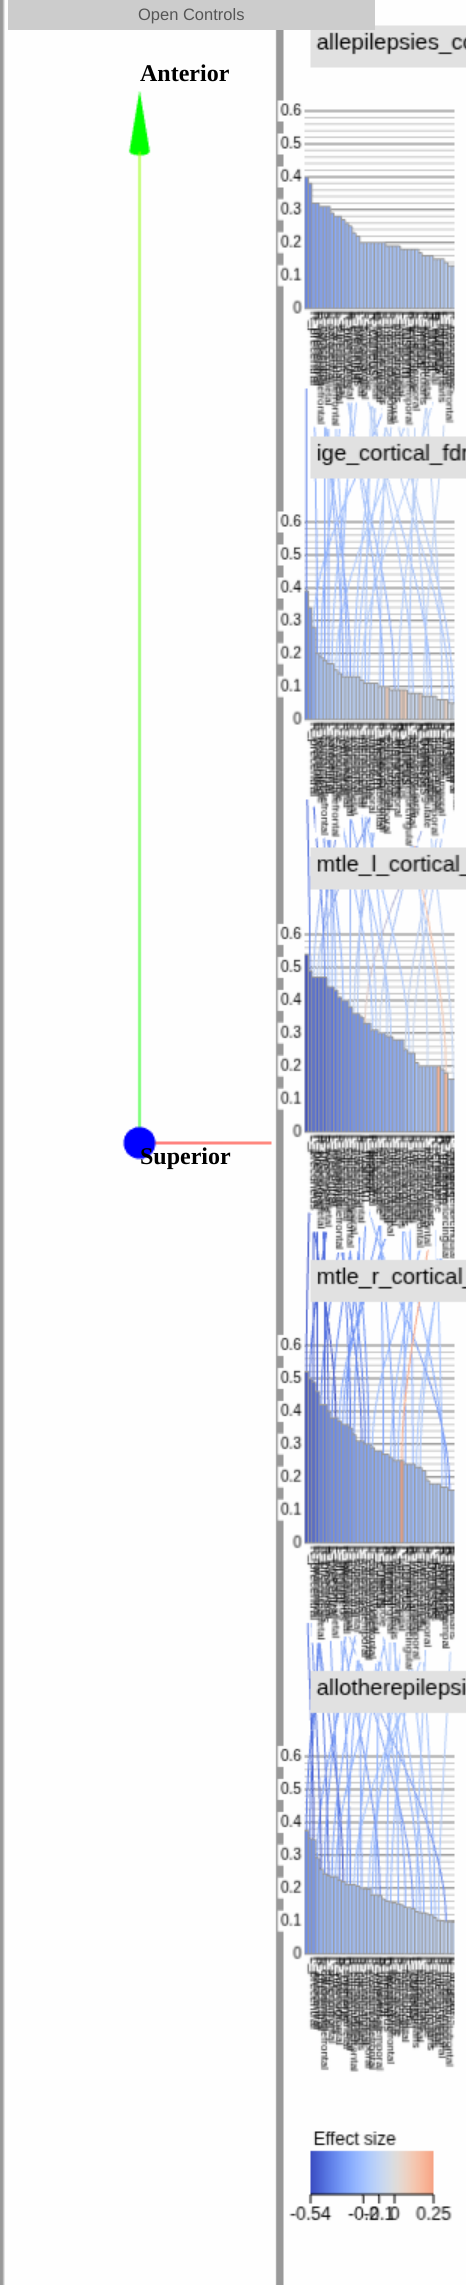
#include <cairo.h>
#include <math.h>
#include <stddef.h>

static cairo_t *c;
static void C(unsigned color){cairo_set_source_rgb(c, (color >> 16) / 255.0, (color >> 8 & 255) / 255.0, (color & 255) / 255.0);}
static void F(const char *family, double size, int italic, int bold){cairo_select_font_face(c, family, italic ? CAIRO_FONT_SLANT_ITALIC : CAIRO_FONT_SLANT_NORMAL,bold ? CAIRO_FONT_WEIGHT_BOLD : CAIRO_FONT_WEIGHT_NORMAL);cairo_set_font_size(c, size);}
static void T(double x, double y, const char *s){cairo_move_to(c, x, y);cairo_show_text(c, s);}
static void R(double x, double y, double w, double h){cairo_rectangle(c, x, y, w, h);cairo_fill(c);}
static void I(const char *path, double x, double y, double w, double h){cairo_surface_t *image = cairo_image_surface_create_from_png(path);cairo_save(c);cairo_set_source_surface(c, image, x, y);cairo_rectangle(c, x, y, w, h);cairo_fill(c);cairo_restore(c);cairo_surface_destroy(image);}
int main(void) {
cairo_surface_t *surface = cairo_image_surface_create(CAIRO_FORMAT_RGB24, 466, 2285);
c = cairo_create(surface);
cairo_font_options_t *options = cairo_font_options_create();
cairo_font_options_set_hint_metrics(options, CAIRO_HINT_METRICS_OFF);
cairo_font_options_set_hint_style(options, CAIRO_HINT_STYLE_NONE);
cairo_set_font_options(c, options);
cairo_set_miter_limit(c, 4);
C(0xffffff);
cairo_paint(c);
I("1.png",0,0,466,2285);
C(0xcccccc);
R(8,0,367,30);
F("Liberation Sans",16.5,0,0);
C(0x555555);
T(138,20,"Open Controls");
F("Liberation Serif",24,0,1);
C(0x000000);
T(140,81,"Anterior");
T(140,1164,"Superior");
cairo_surface_write_to_png(surface, "o.png");
cairo_font_options_destroy(options);
cairo_destroy(c);
cairo_surface_destroy(surface);
return 0;
}
